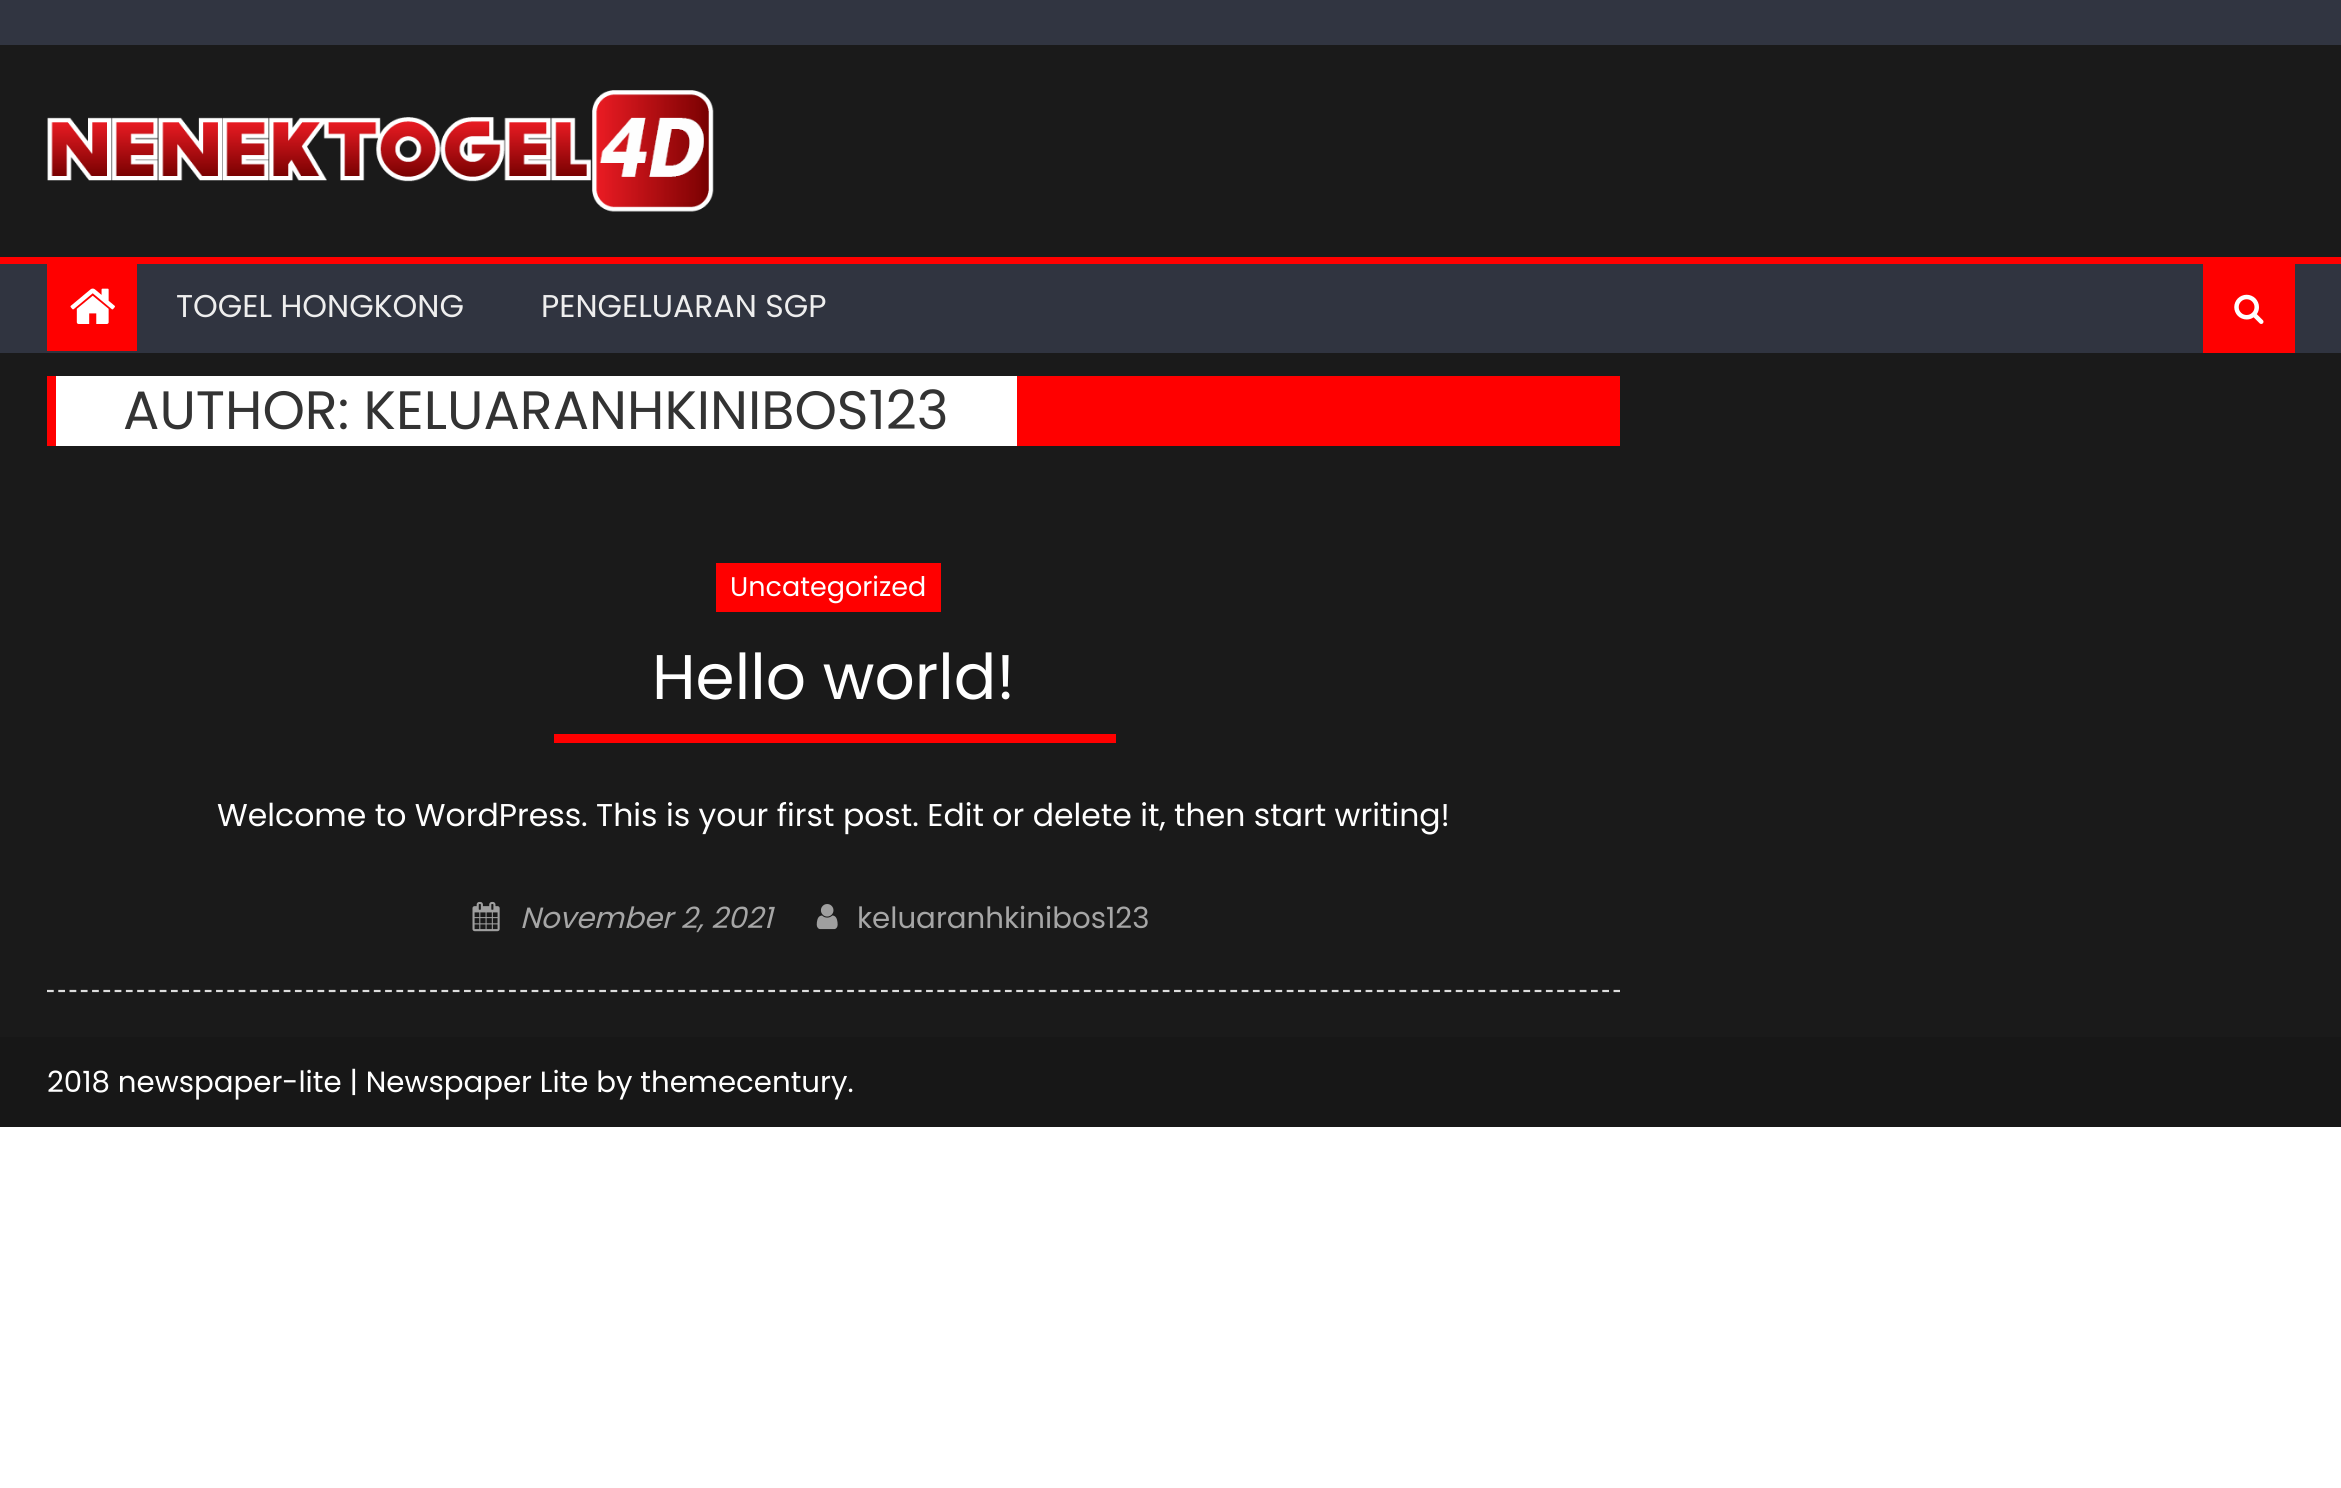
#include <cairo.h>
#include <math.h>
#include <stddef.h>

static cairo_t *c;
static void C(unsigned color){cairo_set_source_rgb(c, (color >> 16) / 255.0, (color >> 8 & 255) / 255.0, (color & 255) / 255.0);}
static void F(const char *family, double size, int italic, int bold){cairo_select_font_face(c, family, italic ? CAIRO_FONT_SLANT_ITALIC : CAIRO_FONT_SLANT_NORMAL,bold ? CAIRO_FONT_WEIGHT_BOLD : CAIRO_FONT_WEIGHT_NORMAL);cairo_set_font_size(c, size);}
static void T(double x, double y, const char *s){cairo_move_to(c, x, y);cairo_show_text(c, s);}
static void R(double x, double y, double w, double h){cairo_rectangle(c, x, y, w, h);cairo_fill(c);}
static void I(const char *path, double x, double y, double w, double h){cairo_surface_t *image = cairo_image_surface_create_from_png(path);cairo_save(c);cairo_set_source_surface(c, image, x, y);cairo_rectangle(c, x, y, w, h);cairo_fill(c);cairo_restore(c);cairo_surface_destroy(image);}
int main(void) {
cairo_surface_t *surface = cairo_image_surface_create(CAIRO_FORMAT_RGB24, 2341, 1488);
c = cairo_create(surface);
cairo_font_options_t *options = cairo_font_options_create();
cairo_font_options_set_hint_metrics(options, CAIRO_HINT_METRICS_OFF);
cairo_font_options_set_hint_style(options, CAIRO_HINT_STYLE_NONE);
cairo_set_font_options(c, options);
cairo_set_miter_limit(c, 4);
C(0xffffff);
cairo_paint(c);
C(0x1a1a1a);
R(0,45,2341,992);
C(0x313541);
R(0,0,2341,45);
I("1.png",47,90,667,122);
C(0x303440);
R(0,264,2341,89);
C(0xff0000);
R(0,257,2341,7);
R(47,264,90,87);
I("2.png",70,288,45,36);
F("Poppins",31.5,0,0);
C(0xeeeeee);
T(176,317,"TOGEL HONGKONG");
T(541,317,"PENGELUARAN SGP");
C(0xff0000);
R(2203,264,92,89);
I("3.png",2234,294,30,30);
R(47,376,1573,70);
C(0xffffff);
R(56,376,961,70);
F("Poppins",54,0,0);
C(0x333333);
T(123,429,"AUTHOR: KELUARANHKINIBOS123");
cairo_new_path(c);
cairo_move_to(c,47,991);
cairo_line_to(c,1620,991);
C(0xdddddd);
cairo_set_line_width(c,2.2);
cairo_set_dash(c,(double[]){6.75,4.52},2,0);
cairo_stroke(c);
C(0xff0000);
R(716,563,225,49);
F("Poppins",27,0,0);
C(0xffffff);
T(730,596,"Uncategorized");
F("Poppins",63,0,0);
T(652,699,"Hello world!");
C(0xff0000);
R(554,734,562,9);
F("Poppins",31.5,0,0);
C(0xffffff);
T(217,826,"Welcome to WordPress. This is your first post. Edit or delete it, then start writing!");
I("4.png",472,901,28,31);
F("Poppins",29.25,1,0);
C(0xa6a6a6);
T(520,928,"November 2, 2021");
I("5.png",816,904,22,26);
F("Poppins",29.25,0,0);
T(857,928,"keluaranhkinibos123");
C(0x171717);
R(0,1037,2341,90);
C(0xffffff);
T(47,1092,"2018 newspaper-lite | Newspaper Lite by themecentury.");
cairo_surface_write_to_png(surface, "o.png");
cairo_font_options_destroy(options);
cairo_destroy(c);
cairo_surface_destroy(surface);
return 0;
}
